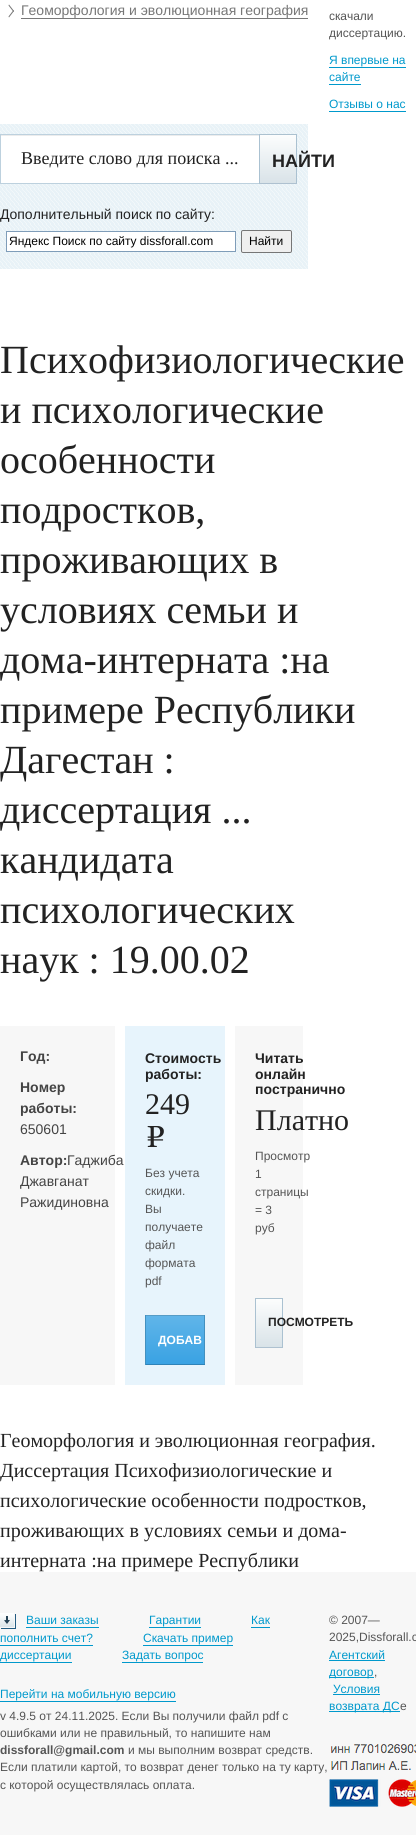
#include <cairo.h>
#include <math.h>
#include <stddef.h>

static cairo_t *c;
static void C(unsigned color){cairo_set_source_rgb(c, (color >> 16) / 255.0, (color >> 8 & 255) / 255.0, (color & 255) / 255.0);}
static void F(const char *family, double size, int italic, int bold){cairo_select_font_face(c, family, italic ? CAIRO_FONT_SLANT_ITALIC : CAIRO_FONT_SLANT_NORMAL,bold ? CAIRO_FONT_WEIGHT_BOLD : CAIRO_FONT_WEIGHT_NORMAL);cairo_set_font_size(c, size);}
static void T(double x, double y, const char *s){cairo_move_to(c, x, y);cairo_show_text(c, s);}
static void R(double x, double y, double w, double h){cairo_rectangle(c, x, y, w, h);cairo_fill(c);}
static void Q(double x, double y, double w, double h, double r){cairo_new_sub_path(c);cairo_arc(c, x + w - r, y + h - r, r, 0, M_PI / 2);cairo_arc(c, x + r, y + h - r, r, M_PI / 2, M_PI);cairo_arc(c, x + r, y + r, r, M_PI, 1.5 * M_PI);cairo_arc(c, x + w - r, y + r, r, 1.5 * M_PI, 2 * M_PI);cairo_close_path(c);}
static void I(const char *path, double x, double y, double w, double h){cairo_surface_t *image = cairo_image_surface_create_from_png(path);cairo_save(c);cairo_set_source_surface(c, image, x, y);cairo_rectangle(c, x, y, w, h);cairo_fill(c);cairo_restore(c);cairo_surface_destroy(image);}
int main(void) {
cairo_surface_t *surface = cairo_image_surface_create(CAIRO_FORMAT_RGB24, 416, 1835);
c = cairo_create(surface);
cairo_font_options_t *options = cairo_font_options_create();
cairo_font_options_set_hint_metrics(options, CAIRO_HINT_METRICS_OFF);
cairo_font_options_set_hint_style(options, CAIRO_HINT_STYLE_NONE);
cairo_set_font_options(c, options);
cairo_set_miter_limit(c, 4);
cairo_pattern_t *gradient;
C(0xffffff);
cairo_paint(c);
C(0x777777);
cairo_new_path(c);
cairo_move_to(c,9,4.5);
cairo_line_to(c,14,11);
cairo_line_to(c,13.5,12);
cairo_line_to(c,8.5,5.5);
cairo_close_path(c);
cairo_fill(c);
cairo_new_path(c);
cairo_move_to(c,13.5,10);
cairo_line_to(c,14,11);
cairo_line_to(c,9,17.5);
cairo_line_to(c,8.5,16.5);
cairo_close_path(c);
cairo_fill(c);
F("Liberation Sans",14,0,0);
T(21,15,"Геоморфология и эволюционная география");
R(21,18,287,1);
F("Liberation Sans",12,0,0);
C(0x555555);
T(329,20,"скачали");
T(329,37,"диссертацию.");
C(0x0099cc);
T(329,64,"Я впервые на");
R(329,67,77,1);
T(329,81,"сайте");
R(329,84,32,1);
T(329,108,"Отзывы о нас");
R(329,111,77,1);
I("1.png",0,124,308,145);
C(0xffffff);
R(1,136,258,47);
C(0xececec);
R(1,135,258,1);
cairo_rectangle(c,.5,134.5,259,49);
C(0xbdd1de);
cairo_set_line_width(c,1);
cairo_stroke(c);
F("Liberation Serif",18,0,0);
C(0x222222);
T(21,164,"Введите слово для поиска ...");
gradient = cairo_pattern_create_linear(278,135,278,183);
cairo_pattern_add_color_stop_rgba(gradient,0,0.988,0.992,0.992,1);
cairo_pattern_add_color_stop_rgba(gradient,1,0.851,0.89,0.91,1);
cairo_set_source(c,gradient);
cairo_pattern_destroy(gradient);
R(260,135,36,48);
C(0xabc1cf);
R(259,134,38,1);
C(0xaac1d1);
R(296,134,1,50);
C(0xaec1d0);
R(259,183,38,1);
C(0xaac1d1);
R(259,134,1,50);
F("Liberation Sans",18,0,1);
C(0x222222);
T(272,167,"НАЙТИ");
F("Liberation Sans",14,0,0);
T(0,219,"Дополнительный поиск по сайту:");
C(0xffffff);
cairo_rectangle(c,6.5,231.5,229,20);
cairo_fill_preserve(c);
C(0x7f9db9);
cairo_stroke(c);
F("Liberation Sans",12,0,0);
C(0x000000);
T(9,245,"Яндекс Поиск по сайту dissforall.com");
C(0xefefef);
Q(241.5,230.5,50,22,1.5);
cairo_fill_preserve(c);
C(0x767676);
cairo_stroke(c);
C(0x000000);
T(249,245,"Найти");
F("Liberation Serif",40,0,0);
C(0x222222);
T(0,373,"Психофизиологические");
T(0,423,"и психологические");
T(0,473,"особенности");
T(0,523,"подростков,");
T(0,573,"проживающих в");
T(0,623,"условиях семьи и");
T(0,673,"дома-интерната :на");
T(0,723,"примере Республики");
T(0,773,"Дагестан :");
T(0,823,"диссертация ...");
T(0,873,"кандидата");
T(0,923,"психологических");
T(0,973,"наук : 19.00.02");
C(0xf7f7f7);
R(0,1026,115,359);
F("Liberation Sans",14,0,1);
C(0x444444);
T(20,1061,"Год:");
T(20,1092,"Номер");
T(20,1113,"работы:");
F("Liberation Sans",14,0,0);
T(20,1134,"650601");
F("Liberation Sans",14,0,1);
T(20,1165,"Автор:");
F("Liberation Sans",14,0,0);
T(67,1165,"Гаджиба");
T(20,1186,"Джавганат");
T(20,1207,"Ражидиновна");
C(0xe7f4fc);
R(125,1026,100,359);
F("Liberation Sans",14,0,1);
C(0x222222);
T(145,1063,"Стоимость");
T(145,1079,"работы:");
F("Liberation Serif",30,0,0);
T(145,1114,"249");
F("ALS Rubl",30,0,0);
T(145,1147,"e");
F("Liberation Sans",12,0,0);
C(0x555555);
T(145,1177,"Без учета");
T(145,1195,"скидки.");
T(145,1213,"Вы");
T(145,1231,"получаете");
T(145,1249,"файл");
T(145,1267,"формата");
T(145,1285,"pdf");
gradient = cairo_pattern_create_linear(175,1316,175,1364);
cairo_pattern_add_color_stop_rgba(gradient,0,0.376,0.71,0.914,1);
cairo_pattern_add_color_stop_rgba(gradient,1,0.224,0.635,0.89,1);
cairo_set_source(c,gradient);
cairo_pattern_destroy(gradient);
R(146,1316,58,48);
C(0x569cc6);
R(145,1315,60,1);
C(0x4290bf);
R(204,1315,1,50);
C(0x2d83b8);
R(145,1364,60,1);
C(0x4290bf);
R(145,1315,1,50);
F("Liberation Sans",12,0,1);
C(0xffffff);
T(158,1344,"ДОБАВ");
C(0xf7f7f7);
R(235,1026,68,359);
F("Liberation Sans",14,0,1);
C(0x222222);
T(255,1063,"Читать");
T(255,1079,"онлайн");
T(255,1094,"постранично");
F("Liberation Serif",30,0,0);
T(255,1130,"Платно");
F("Liberation Sans",12,0,0);
C(0x555555);
T(255,1160,"Просмотр");
T(255,1178,"1");
T(255,1196,"страницы");
T(255,1214,"= 3");
T(255,1232,"руб");
gradient = cairo_pattern_create_linear(269,1299,269,1347);
cairo_pattern_add_color_stop_rgba(gradient,0,0.988,0.992,0.992,1);
cairo_pattern_add_color_stop_rgba(gradient,1,0.851,0.89,0.91,1);
cairo_set_source(c,gradient);
cairo_pattern_destroy(gradient);
R(256,1299,26,48);
C(0xabc1cf);
R(255,1298,28,1);
C(0xaac1d1);
R(282,1298,1,50);
C(0xaec1d0);
R(255,1347,28,1);
C(0xaac1d1);
R(255,1298,1,50);
F("Liberation Sans",12,0,1);
C(0x222222);
T(268,1326,"ПОСМОТРЕТЬ");
F("Liberation Serif",20,0,0);
T(0,1447,"Геоморфология и эволюционная география.");
T(0,1477,"Диссертация Психофизиологические и");
T(0,1507,"психологические особенности подростков,");
T(0,1537,"проживающих в условиях семьи и дома-");
T(0,1567,"интерната :на примере Республики");
C(0xf7f7f7);
R(0,1572,416,263);
I("2.png",0,1613,16,16);
F("Liberation Sans",12,0,0);
C(0x0099cc);
T(26,1624,"Ваши заказы");
R(26,1627,73,1);
T(149,1624,"Гарантии");
R(149,1627,52,1);
T(251,1624,"Как");
R(251,1627,19,1);
T(0,1642,"пополнить счет?");
R(0,1645,93,1);
T(143,1642,"Скачать пример");
R(143,1645,90,1);
T(0,1659,"диссертации");
R(0,1662,72,1);
T(122,1659,"Задать вопрос");
R(122,1662,81,1);
T(0,1698,"Перейти на мобильную версию");
R(0,1701,176,1);
C(0x555555);
T(0,1720,"v 4.9.5 от 24.11.2025. Если Вы получили файл pdf с");
T(0,1737,"ошибками или не правильный, то напишите нам");
F("Liberation Sans",12,0,1);
T(0,1754,"dissforall@gmail.com");
F("Liberation Sans",12,0,0);
T(128,1754,"и мы выполним возврат средств.");
T(0,1771,"Если платили картой, то возврат денег только на ту карту,");
T(0,1789,"с которой осуществлялась оплата.");
T(329,1624,"© 2007—");
T(329,1641,"2025,Dissforall.c");
C(0x0099cc);
T(329,1659,"Агентский");
R(329,1660,56,1);
R(329,1677,45,1);
T(329,1676,"договор");
C(0x555555);
T(374,1676,",");
C(0x0099cc);
T(333,1693,"Условия");
R(333,1694,47,1);
R(329,1711,71,1);
T(329,1710,"возврата ДС");
C(0x555555);
T(400,1710,"e");
I("3.png",330,1744,86,27);
I("4.png",329,1779,87,28);
cairo_surface_write_to_png(surface, "o.png");
cairo_font_options_destroy(options);
cairo_destroy(c);
cairo_surface_destroy(surface);
return 0;
}
